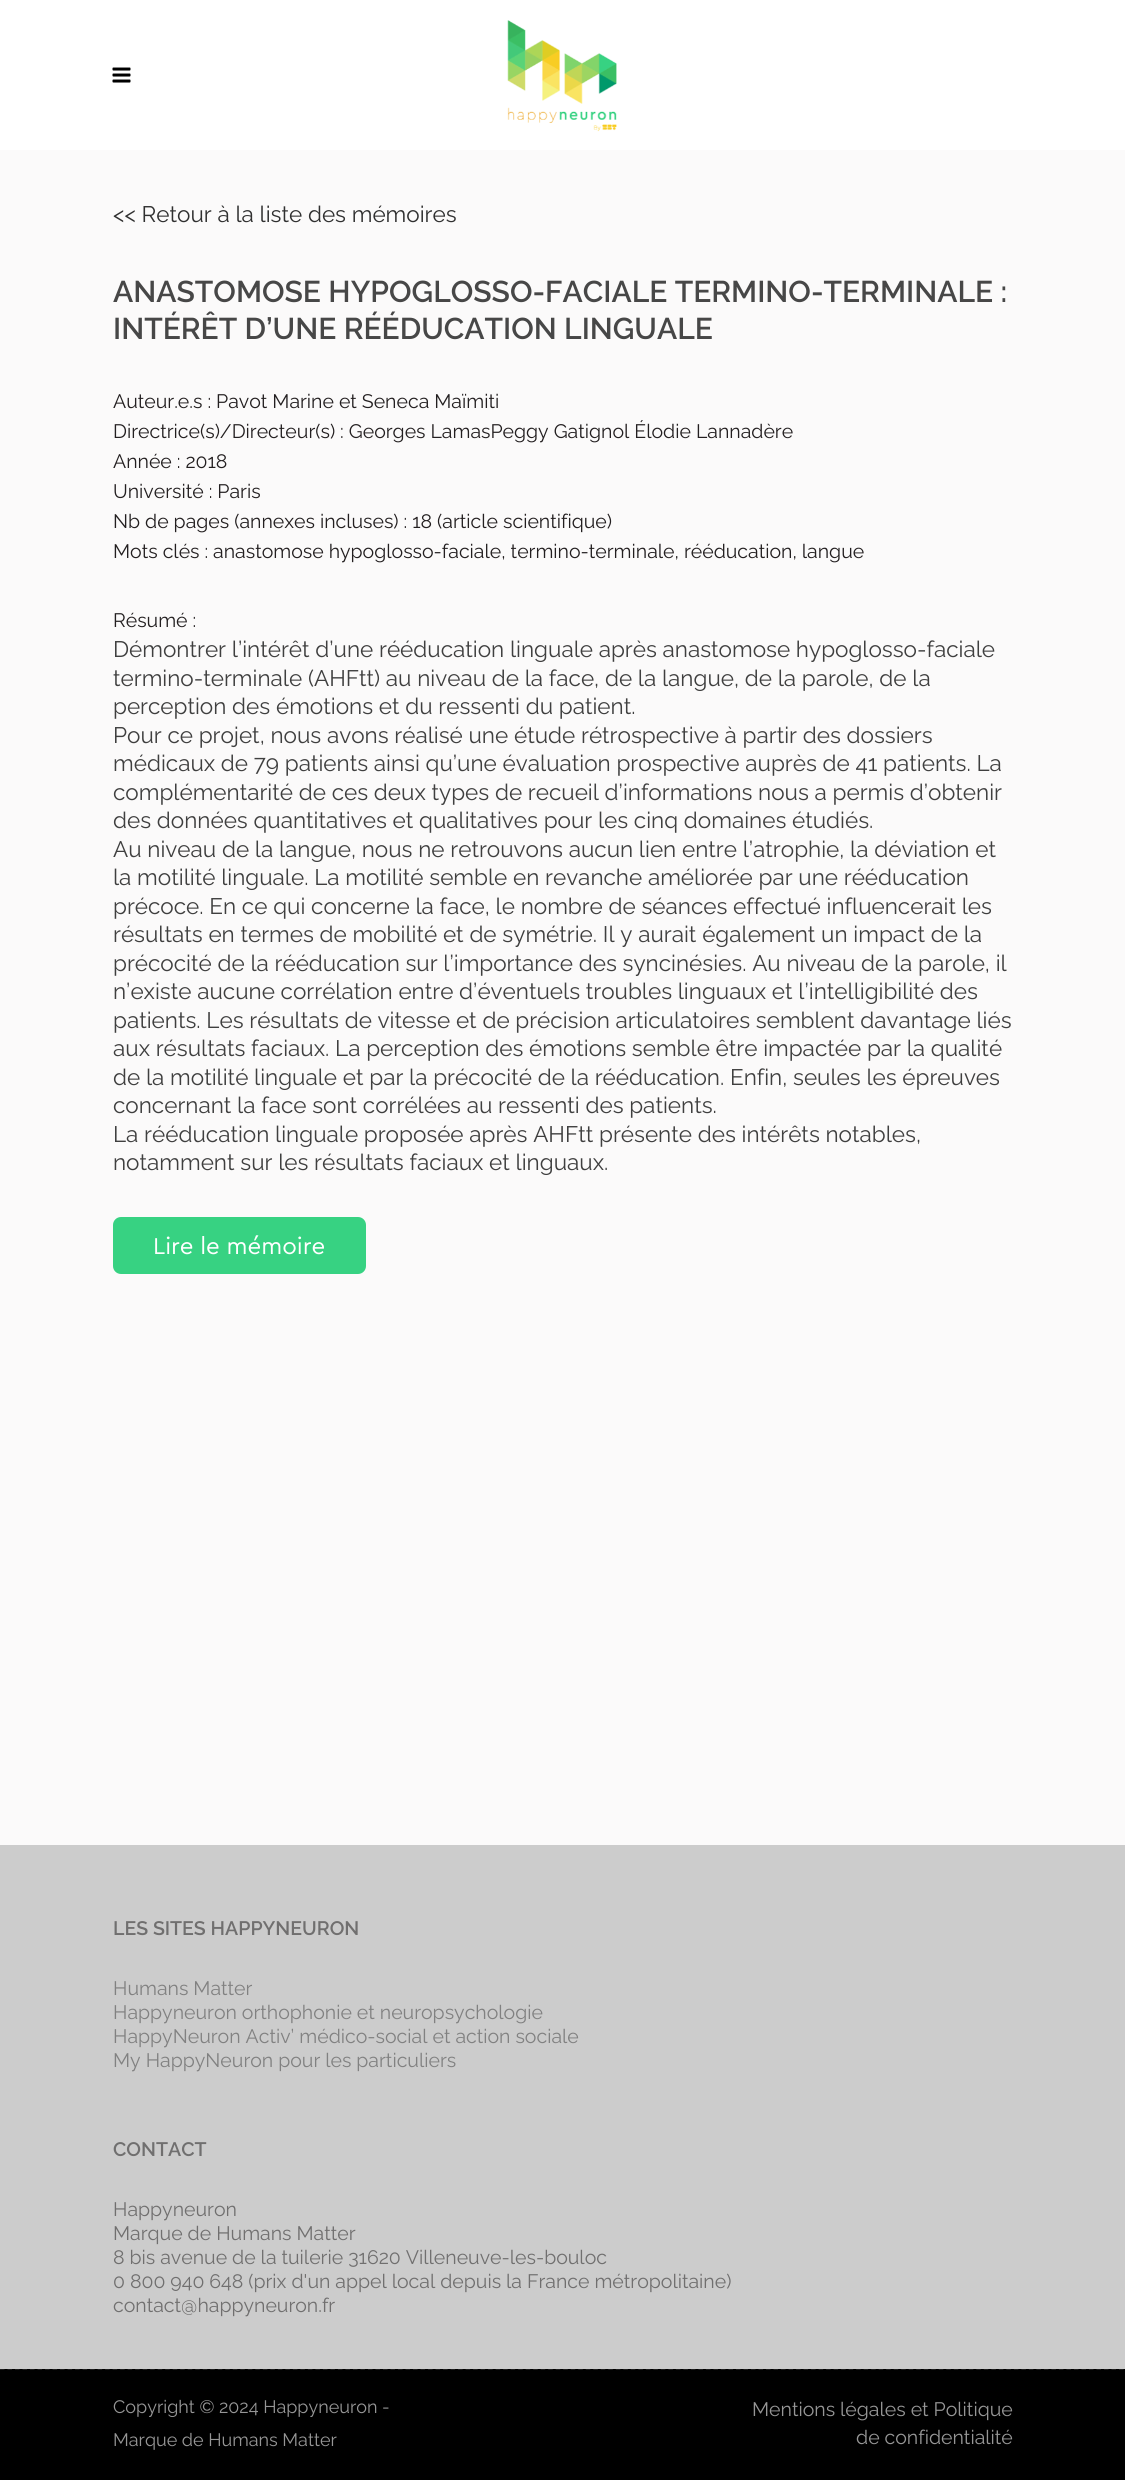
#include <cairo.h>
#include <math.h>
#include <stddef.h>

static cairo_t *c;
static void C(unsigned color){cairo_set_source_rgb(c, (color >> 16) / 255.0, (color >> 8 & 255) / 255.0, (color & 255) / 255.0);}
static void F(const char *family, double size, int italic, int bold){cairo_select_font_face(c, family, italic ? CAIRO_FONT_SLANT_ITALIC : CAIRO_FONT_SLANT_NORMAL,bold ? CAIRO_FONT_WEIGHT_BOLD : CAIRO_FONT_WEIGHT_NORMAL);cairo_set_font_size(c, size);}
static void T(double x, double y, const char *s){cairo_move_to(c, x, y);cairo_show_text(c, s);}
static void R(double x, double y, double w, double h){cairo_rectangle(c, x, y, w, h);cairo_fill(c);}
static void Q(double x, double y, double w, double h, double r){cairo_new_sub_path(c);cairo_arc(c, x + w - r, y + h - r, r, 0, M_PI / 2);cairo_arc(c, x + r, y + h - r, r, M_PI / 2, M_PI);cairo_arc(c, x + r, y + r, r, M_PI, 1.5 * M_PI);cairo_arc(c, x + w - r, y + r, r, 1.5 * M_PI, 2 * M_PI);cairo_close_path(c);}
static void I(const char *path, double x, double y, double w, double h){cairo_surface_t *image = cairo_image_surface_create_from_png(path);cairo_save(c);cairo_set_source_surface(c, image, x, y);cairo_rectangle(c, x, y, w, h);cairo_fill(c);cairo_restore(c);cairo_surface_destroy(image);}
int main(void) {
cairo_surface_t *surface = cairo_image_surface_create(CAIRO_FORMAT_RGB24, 1125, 2480);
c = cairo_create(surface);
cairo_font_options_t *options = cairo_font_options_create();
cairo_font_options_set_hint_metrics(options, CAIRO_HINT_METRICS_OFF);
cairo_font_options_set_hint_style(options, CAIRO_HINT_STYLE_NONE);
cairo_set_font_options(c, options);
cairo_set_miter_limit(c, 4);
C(0xfbfafa);
cairo_paint(c);
C(0xffffff);
R(0,0,1125,150);
I("1.png",112,67,19,16);
I("2.png",507,20,110,112);
F("Raleway",22.5,0,0);
C(0x303030);
T(113,222,"<< Retour à la liste des mémoires");
F("Raleway SemiBold",30,0,0);
C(0x474747);
T(113,302,"ANASTOMOSE HYPOGLOSSO-FACIALE TERMINO-TERMINALE :");
T(113,339,"INTÉRÊT D’UNE RÉÉDUCATION LINGUALE");
F("Raleway",19.5,0,0);
C(0x231f20);
T(113,408,"Auteur.e.s : Pavot Marine et Seneca Maïmiti");
T(113,438,"Directrice(s)/Directeur(s) : Georges LamasPeggy Gatignol Élodie Lannadère");
T(113,468,"Année : 2018");
T(113,498,"Université : Paris");
T(113,528,"Nb de pages (annexes incluses) : 18 (article scientifique)");
T(113,558,"Mots clés : anastomose hypoglosso-faciale, termino-terminale, rééducation, langue");
T(113,627,"Résumé :");
F("Raleway",22.5,0,0);
C(0x3f3f3f);
T(113,657,"Démontrer l’intérêt d’une rééducation linguale après anastomose hypoglosso-faciale");
T(113,686,"termino-terminale (AHFtt) au niveau de la face, de la langue, de la parole, de la");
T(113,714,"perception des émotions et du ressenti du patient.");
T(113,743,"Pour ce projet, nous avons réalisé une étude rétrospective à partir des dossiers");
T(113,771,"médicaux de 79 patients ainsi qu’une évaluation prospective auprès de 41 patients. La");
T(113,800,"complémentarité de ces deux types de recueil d’informations nous a permis d’obtenir");
T(113,828,"des données quantitatives et qualitatives pour les cinq domaines étudiés.");
T(113,857,"Au niveau de la langue, nous ne retrouvons aucun lien entre l’atrophie, la déviation et");
T(113,885,"la motilité linguale. La motilité semble en revanche améliorée par une rééducation");
T(113,914,"précoce. En ce qui concerne la face, le nombre de séances effectué influencerait les");
T(113,942,"résultats en termes de mobilité et de symétrie. Il y aurait également un impact de la");
T(113,971,"précocité de la rééducation sur l’importance des syncinésies. Au niveau de la parole, il");
T(113,999,"n’existe aucune corrélation entre d’éventuels troubles linguaux et l’intelligibilité des");
T(113,1028,"patients. Les résultats de vitesse et de précision articulatoires semblent davantage liés");
T(113,1056,"aux résultats faciaux. La perception des émotions semble être impactée par la qualité");
T(113,1085,"de la motilité linguale et par la précocité de la rééducation. Enfin, seules les épreuves");
T(113,1113,"concernant la face sont corrélées au ressenti des patients.");
T(113,1142,"La rééducation linguale proposée après AHFtt présente des intérêts notables,");
T(113,1170,"notamment sur les résultats faciaux et linguaux.");
C(0x37d282);
Q(113,1217,253,57,8);
cairo_fill(c);
F("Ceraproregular",24,0,0);
C(0xffffff);
T(153,1254,"Lire le mémoire");
C(0x000000);
R(0,2369,1125,111);
cairo_new_path(c);
cairo_move_to(c,0,2369);
cairo_line_to(c,1125,2369);
C(0x282828);
cairo_set_line_width(c,1.5);
cairo_set_dash(c,(double[]){4.5,3.01},2,0);
cairo_stroke(c);
C(0xcccccc);
R(0,1845,1125,524);
F("Raleway SemiBold",19.5,0,0);
C(0x706f6f);
T(113,1935,"LES SITES HAPPYNEURON");
F("Raleway",19.5,0,0);
C(0x818181);
T(113,1995,"Humans Matter");
T(113,2019,"Happyneuron orthophonie et neuropsychologie");
T(113,2043,"HappyNeuron Activ’ médico-social et action sociale");
T(113,2067,"My HappyNeuron pour les particuliers");
F("Raleway SemiBold",19.5,0,0);
C(0x706f6f);
T(113,2156,"CONTACT");
F("Raleway",19.5,0,0);
T(113,2216,"Happyneuron");
T(113,2240,"Marque de Humans Matter");
T(113,2264,"8 bis avenue de la tuilerie 31620 Villeneuve-les-bouloc");
T(113,2288,"0 800 940 648 (prix d'un appel local depuis la France métropolitaine)");
T(113,2312,"contact@happyneuron.fr");
F("Raleway",18,0,0);
C(0x969696);
T(113,2413,"Copyright © 2024 Happyneuron -");
T(113,2446,"Marque de Humans Matter");
F("Raleway",19.5,0,0);
T(752,2416,"Mentions légales et Politique");
T(856,2444,"de confidentialité");
cairo_surface_write_to_png(surface, "o.png");
cairo_font_options_destroy(options);
cairo_destroy(c);
cairo_surface_destroy(surface);
return 0;
}
